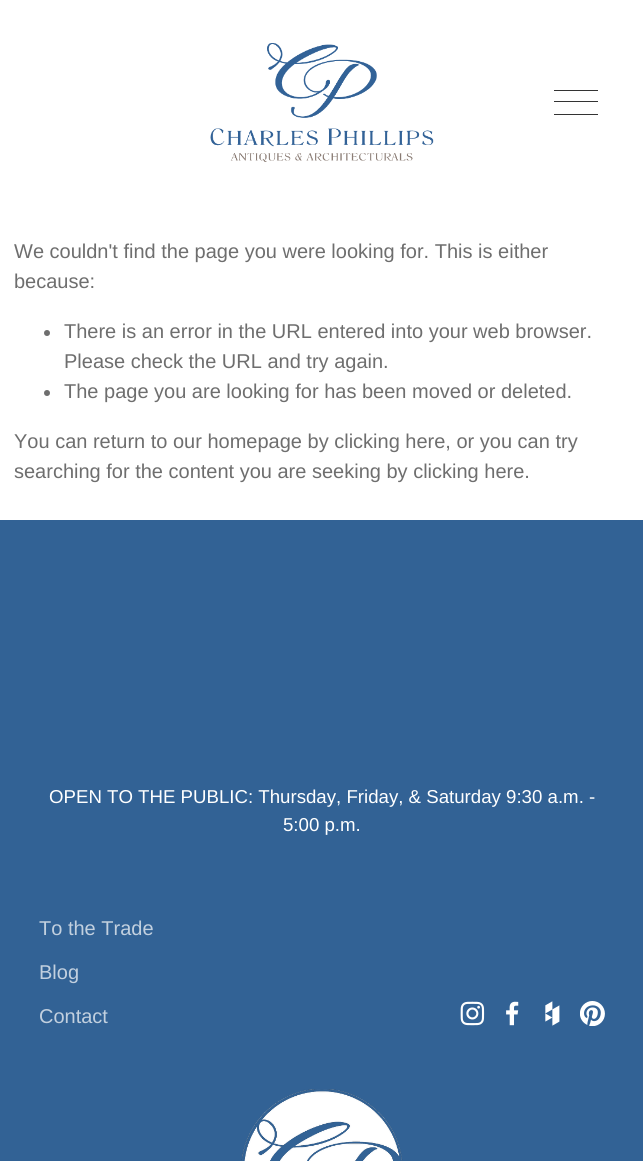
#include <cairo.h>
#include <math.h>
#include <stddef.h>

static cairo_t *c;
static void C(unsigned color){cairo_set_source_rgb(c, (color >> 16) / 255.0, (color >> 8 & 255) / 255.0, (color & 255) / 255.0);}
static void F(const char *family, double size, int italic, int bold){cairo_select_font_face(c, family, italic ? CAIRO_FONT_SLANT_ITALIC : CAIRO_FONT_SLANT_NORMAL,bold ? CAIRO_FONT_WEIGHT_BOLD : CAIRO_FONT_WEIGHT_NORMAL);cairo_set_font_size(c, size);}
static void T(double x, double y, const char *s){cairo_move_to(c, x, y);cairo_show_text(c, s);}
static void R(double x, double y, double w, double h){cairo_rectangle(c, x, y, w, h);cairo_fill(c);}
static void I(const char *path, double x, double y, double w, double h){cairo_surface_t *image = cairo_image_surface_create_from_png(path);cairo_save(c);cairo_set_source_surface(c, image, x, y);cairo_rectangle(c, x, y, w, h);cairo_fill(c);cairo_restore(c);cairo_surface_destroy(image);}
int main(void) {
cairo_surface_t *surface = cairo_image_surface_create(CAIRO_FORMAT_RGB24, 643, 1161);
c = cairo_create(surface);
cairo_font_options_t *options = cairo_font_options_create();
cairo_font_options_set_hint_metrics(options, CAIRO_HINT_METRICS_OFF);
cairo_font_options_set_hint_style(options, CAIRO_HINT_STYLE_NONE);
cairo_set_font_options(c, options);
cairo_set_miter_limit(c, 4);
C(0xffffff);
cairo_paint(c);
I("1.png",210,43,224,119);
C(0x333333);
R(554,90,44,1);
R(554,101,44,1);
R(554,114,44,1);
F("Liberation Sans",20,0,0);
C(0x6e6e6e);
T(14,258,"We couldn't find the page you were looking for. This is either");
T(14,288,"because:");
cairo_new_path(c);
cairo_arc(c,47,333,3,0,2 * M_PI);
cairo_fill(c);
T(64,338,"There is an error in the URL entered into your web browser.");
T(64,368,"Please check the URL and try again.");
cairo_new_path(c);
cairo_arc(c,47,393,3,0,2 * M_PI);
cairo_fill(c);
T(64,398,"The page you are looking for has been moved or deleted.");
T(14,448,"You can return to our homepage by clicking here, or you can try");
T(14,478,"searching for the content you are seeking by clicking here.");
C(0x326295);
R(0,520,643,641);
F("Liberation Sans",18.65,0,0);
C(0xffffff);
T(49,803,"OPEN TO THE PUBLIC: Thursday, Friday, & Saturday 9:30 a.m. -");
T(283,831,"5:00 p.m.");
F("Liberation Sans",20,0,0);
C(0xc2d0df);
T(39,935,"To the Trade");
T(39,979,"Blog");
T(39,1023,"Contact");
I("2.png",460,1001,25,25);
I("3.png",506,1001,13,25);
I("4.png",545,1001,15,25);
I("5.png",580,1001,25,25);
I("6.png",241,1089,162,72);
cairo_surface_write_to_png(surface, "o.png");
cairo_font_options_destroy(options);
cairo_destroy(c);
cairo_surface_destroy(surface);
return 0;
}
